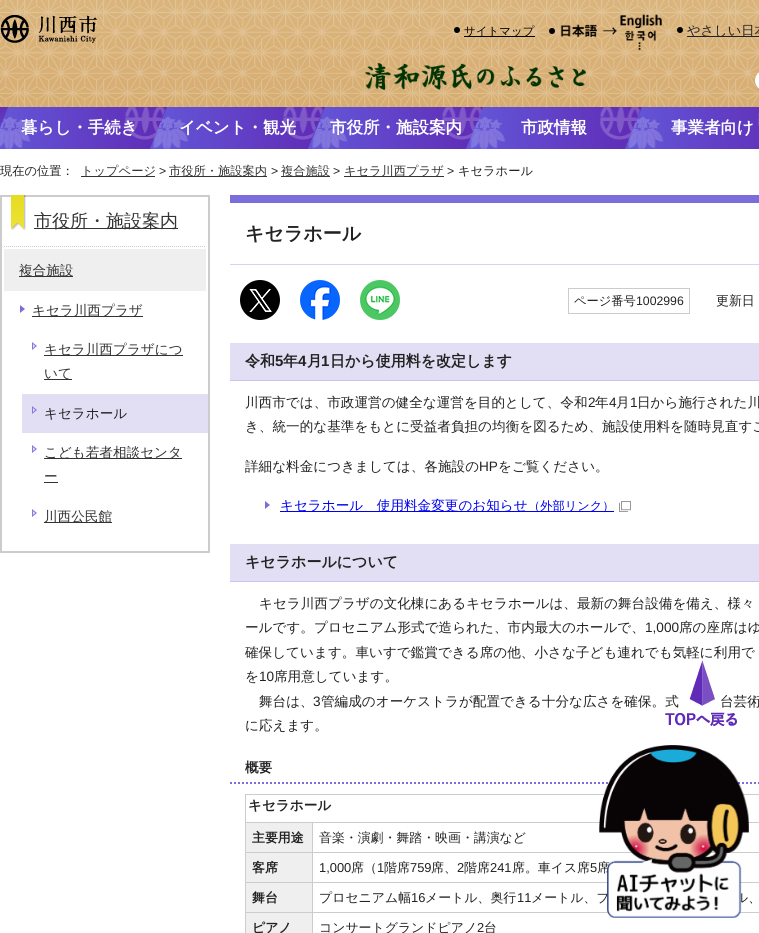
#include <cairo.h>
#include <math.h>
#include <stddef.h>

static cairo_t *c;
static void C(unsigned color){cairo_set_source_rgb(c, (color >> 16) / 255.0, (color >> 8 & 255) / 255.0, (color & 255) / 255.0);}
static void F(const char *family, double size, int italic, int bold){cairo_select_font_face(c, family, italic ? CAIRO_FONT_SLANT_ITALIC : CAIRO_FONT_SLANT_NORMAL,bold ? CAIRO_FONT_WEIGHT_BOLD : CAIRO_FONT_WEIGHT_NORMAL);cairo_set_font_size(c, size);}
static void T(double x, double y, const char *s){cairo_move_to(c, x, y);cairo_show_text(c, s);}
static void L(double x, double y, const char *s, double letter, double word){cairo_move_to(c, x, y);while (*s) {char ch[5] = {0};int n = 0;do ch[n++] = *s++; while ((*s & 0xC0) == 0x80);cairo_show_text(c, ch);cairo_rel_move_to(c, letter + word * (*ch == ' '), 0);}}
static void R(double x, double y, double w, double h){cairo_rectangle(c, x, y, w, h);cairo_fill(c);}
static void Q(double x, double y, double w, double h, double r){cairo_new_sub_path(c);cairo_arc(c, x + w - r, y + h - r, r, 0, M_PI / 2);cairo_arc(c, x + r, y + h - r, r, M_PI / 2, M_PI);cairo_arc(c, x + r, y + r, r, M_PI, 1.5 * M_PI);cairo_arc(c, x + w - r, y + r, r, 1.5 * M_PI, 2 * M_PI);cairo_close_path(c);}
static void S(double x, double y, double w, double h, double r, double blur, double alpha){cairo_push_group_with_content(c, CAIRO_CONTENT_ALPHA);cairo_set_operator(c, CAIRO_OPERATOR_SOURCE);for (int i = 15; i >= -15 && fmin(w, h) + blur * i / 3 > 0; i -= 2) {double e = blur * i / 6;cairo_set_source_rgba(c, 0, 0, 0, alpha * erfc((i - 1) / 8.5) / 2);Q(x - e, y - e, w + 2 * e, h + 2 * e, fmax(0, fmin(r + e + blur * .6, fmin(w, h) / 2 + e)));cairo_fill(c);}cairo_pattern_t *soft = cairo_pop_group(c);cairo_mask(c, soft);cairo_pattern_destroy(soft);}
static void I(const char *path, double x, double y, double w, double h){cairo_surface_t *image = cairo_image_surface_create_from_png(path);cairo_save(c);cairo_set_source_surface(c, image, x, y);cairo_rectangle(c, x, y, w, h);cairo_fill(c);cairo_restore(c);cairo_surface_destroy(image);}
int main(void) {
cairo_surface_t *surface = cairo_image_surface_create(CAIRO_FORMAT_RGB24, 759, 933);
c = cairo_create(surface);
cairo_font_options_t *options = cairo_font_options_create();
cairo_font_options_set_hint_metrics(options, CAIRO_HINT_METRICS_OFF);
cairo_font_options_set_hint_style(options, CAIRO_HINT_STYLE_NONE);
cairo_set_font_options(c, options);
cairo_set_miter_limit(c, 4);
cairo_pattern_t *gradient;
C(0xffffff);
cairo_paint(c);
I("1.png",0,0,759,107);
I("2.png",0,15,97,28);
C(0x000000);
cairo_arc(c,457,30,3,0,2 * M_PI);
cairo_fill(c);
R(464,36,71,1);
F("WenQuanYi Zen Hei Medium",11.5,0,0);
T(464,35,"サイトマップ");
cairo_new_path(c);
cairo_arc(c,552,31,3,0,2 * M_PI);
cairo_fill(c);
I("3.png",560,14,103,37);
cairo_arc(c,680,30,3,0,2 * M_PI);
cairo_fill(c);
C(0x222222);
R(687,36,72,1);
F("WenQuanYi Zen Hei Medium",13.25,0,0);
T(687,35,"やさしい日本");
I("4.png",365,63,221,27);
C(0x000000);
S(757,72,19,21,10.5,2,.2);
C(0xffffff);
Q(755,70,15,21,10.5);
cairo_fill(c);
gradient = cairo_pattern_create_linear(380,149,380,107);
cairo_pattern_add_color_stop_rgba(gradient,0,0.38,0.341,0.827,1);
cairo_pattern_add_color_stop_rgba(gradient,1,0.38,0.18,0.706,1);
cairo_set_source(c,gradient);
cairo_pattern_destroy(gradient);
R(0,107,642,42);
gradient = cairo_pattern_create_linear(0,128,158,128);
cairo_pattern_add_color_stop_rgba(gradient,0,0.388,0.337,0.843,1);
cairo_pattern_add_color_stop_rgba(gradient,1,0.376,0.173,0.718,1);
cairo_set_source(c,gradient);
cairo_pattern_destroy(gradient);
cairo_new_path(c);
cairo_move_to(c,8,107);
cairo_line_to(c,167,107);
cairo_line_to(c,150,149);
cairo_line_to(c,-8,149);
cairo_close_path(c);
cairo_fill(c);
I("6.png",125,107,40,33);
F("WenQuanYi Zen Hei",16.5,0,1);
C(0xffffff);
T(21,133,"暮らし・手続き");
I("5.png",0,116,31,33);
gradient = cairo_pattern_create_linear(158,128,317,128);
cairo_pattern_add_color_stop_rgba(gradient,0,0.388,0.337,0.843,1);
cairo_pattern_add_color_stop_rgba(gradient,1,0.376,0.173,0.718,1);
cairo_set_source(c,gradient);
cairo_pattern_destroy(gradient);
cairo_new_path(c);
cairo_move_to(c,167,107);
cairo_line_to(c,325,107);
cairo_line_to(c,308,149);
cairo_line_to(c,150,149);
cairo_close_path(c);
cairo_fill(c);
I("8.png",283,107,40,33);
C(0xffffff);
T(179,133,"イベント・観光");
I("7.png",153,116,36,33);
gradient = cairo_pattern_create_linear(317,128,475,128);
cairo_pattern_add_color_stop_rgba(gradient,0,0.388,0.337,0.843,1);
cairo_pattern_add_color_stop_rgba(gradient,1,0.376,0.173,0.718,1);
cairo_set_source(c,gradient);
cairo_pattern_destroy(gradient);
cairo_new_path(c);
cairo_move_to(c,325,107);
cairo_line_to(c,483,107);
cairo_line_to(c,466,149);
cairo_line_to(c,308,149);
cairo_close_path(c);
cairo_fill(c);
I("10.png",442,107,40,33);
C(0xffffff);
T(330,133,"市役所・施設案内");
I("9.png",312,116,36,33);
gradient = cairo_pattern_create_linear(475,128,633,128);
cairo_pattern_add_color_stop_rgba(gradient,0,0.388,0.337,0.843,1);
cairo_pattern_add_color_stop_rgba(gradient,1,0.376,0.173,0.718,1);
cairo_set_source(c,gradient);
cairo_pattern_destroy(gradient);
cairo_new_path(c);
cairo_move_to(c,483,107);
cairo_line_to(c,642,107);
cairo_line_to(c,625,149);
cairo_line_to(c,466,149);
cairo_close_path(c);
cairo_fill(c);
I("11.png",470,116,36,33);
C(0xffffff);
T(521,133,"市政情報");
I("12.png",600,107,40,33);
gradient = cairo_pattern_create_linear(633,128,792,128);
cairo_pattern_add_color_stop_rgba(gradient,0,0.388,0.337,0.843,1);
cairo_pattern_add_color_stop_rgba(gradient,1,0.376,0.173,0.718,1);
cairo_set_source(c,gradient);
cairo_pattern_destroy(gradient);
cairo_new_path(c);
cairo_move_to(c,642,107);
cairo_line_to(c,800,107);
cairo_line_to(c,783,149);
cairo_line_to(c,625,149);
cairo_close_path(c);
cairo_fill(c);
I("13.png",628,116,36,33);
C(0xffffff);
T(671,133,"事業者向け");
I("14.png",758,112,1,14);
F("WenQuanYi Zen Hei Medium",12.25,0,0);
C(0x222222);
T(0,175,"現在の位置：");
C(0x333333);
R(81,176,74,1);
T(81,175,"トップページ");
F("Liberation Sans",12.25,0,0);
C(0x222222);
T(159,175,">");
C(0x333333);
R(169,176,98,1);
F("WenQuanYi Zen Hei Medium",12.25,0,0);
T(169,175,"市役所・施設案内");
F("Liberation Sans",12.25,0,0);
C(0x222222);
T(271,175,">");
C(0x333333);
R(281,176,49,1);
F("WenQuanYi Zen Hei Medium",12.25,0,0);
T(281,175,"複合施設");
F("Liberation Sans",12.25,0,0);
C(0x222222);
T(333,175,">");
C(0x333333);
R(344,176,100,1);
F("WenQuanYi Zen Hei Medium",12.25,0,0);
T(344,175,"キセラ川西プラザ");
F("Liberation Sans",12.25,0,0);
C(0x222222);
T(447,175,">");
F("WenQuanYi Zen Hei Medium",12.25,0,0);
T(458,175,"キセラホール");
C(0xcccccc);
R(208,195,2,358);
R(0,551,210,2);
R(0,195,2,358);
I("15.png",2,195,206,36);
cairo_new_path(c);
cairo_move_to(c,4,246.5);
cairo_line_to(c,206,246.5);
cairo_set_line_width(c,1);
cairo_set_dash(c,(double[]){1,1},2,0);
cairo_stroke(c);
C(0x333333);
R(34,228,144,1);
F("WenQuanYi Zen Hei Medium",18,0,0);
T(34,227,"市役所・施設案内");
C(0xefefef);
R(4,249,202,42);
C(0x333333);
R(19,276,54,1);
F("WenQuanYi Zen Hei Medium",13.6,0,0);
T(19,275,"複合施設");
I("16.png",20,305,5,8);
R(32,316,111,1);
T(32,315,"キセラ川西プラザ");
I("17.png",32,342,5,8);
R(44,355,139,1);
T(44,354,"キセラ川西プラザにつ");
R(44,379,28,1);
T(44,378,"いて");
C(0xe2dff4);
R(22,394,186,39);
I("18.png",32,406,5,8);
C(0x222222);
T(44,418,"キセラホール");
I("17.png",32,445,5,8);
C(0x333333);
R(44,458,138,1);
T(44,457,"こども若者相談センタ");
T(44,481,"ー");
R(44,482,14,1);
I("17.png",32,509,5,8);
R(44,522,68,1);
T(44,521,"川西公民館");
C(0x7b6edb);
R(230,195,529,8);
C(0xd7d3f4);
R(230,264,529,1);
F("WenQuanYi Zen Hei",19,0,1);
C(0x222222);
T(245,240,"キセラホール");
I("19.png",240,280,40,40);
I("20.png",300,280,40,40);
I("21.png",360,280,40,40);
cairo_rectangle(c,568.5,288.5,121,25);
C(0xcccccc);
cairo_set_dash(c,NULL,0,0);
cairo_stroke(c);
F("WenQuanYi Zen Hei Medium",12.25,0,0);
C(0x222222);
T(574,305,"ページ番号");
F("Liberation Sans",12.25,0,0);
T(636,305,"1002996");
F("WenQuanYi Zen Hei Medium",12.9,0,0);
T(716,305,"更新日");
C(0xe2dff4);
R(230,343,529,37);
C(0xc9c2f5);
R(230,380,529,1);
F("WenQuanYi Zen Hei",15,0,1);
C(0x222222);
T(245,366,"令和");
F("Liberation Sans",15,0,1);
T(275,366,"5");
F("WenQuanYi Zen Hei",15,0,1);
T(283,366,"年");
F("Liberation Sans",15,0,1);
T(298,366,"4");
F("WenQuanYi Zen Hei",15,0,1);
T(307,366,"月");
F("Liberation Sans",15,0,1);
T(321,366,"1");
F("WenQuanYi Zen Hei",15,0,1);
T(330,366,"日から使用料を改定します");
F("WenQuanYi Zen Hei Medium",13.6,0,0);
T(245,407,"川西市では、市政運営の健全な運営を目的として、令和");
F("Liberation Sans",13.6,0,0);
T(588,407,"2");
F("WenQuanYi Zen Hei Medium",13.6,0,0);
T(595,407,"年");
F("Liberation Sans",13.6,0,0);
T(609,407,"4");
F("WenQuanYi Zen Hei Medium",13.6,0,0);
T(616,407,"月");
F("Liberation Sans",13.6,0,0);
T(630,407,"1");
F("WenQuanYi Zen Hei Medium",13.6,0,0);
T(637,407,"日から施行された川");
T(245,431,"き、統一的な基準をもとに受益者負担の均衡を図るため、施設使用料を随時見直すこ");
T(245,471,"詳細な料金につきましては、各施設の");
F("Liberation Sans",13.6,0,0);
T(479,471,"HP");
F("WenQuanYi Zen Hei Medium",13.6,0,0);
T(498,471,"をご覧ください。");
I("16.png",265,501,5,8);
C(0x0000ee);
R(280,511,334,1);
T(280,510,"キセラホール　使用料金変更のお知らせ");
F("WenQuanYi Zen Hei Medium",12.25,0,0);
T(528,510,"（外部リンク）");
I("22.png",619,501,12,11);
C(0xe2dff4);
R(230,544,529,37);
C(0xc9c2f5);
R(230,581,529,1);
F("WenQuanYi Zen Hei",15,0,1);
C(0x222222);
T(245,567,"キセラホールについて");
F("WenQuanYi Zen Hei Medium",13.6,0,0);
T(259,608,"キセラ川西プラザの文化棟にあるキセラホールは、最新の舞台設備を備え、様々");
T(245,632,"ールです。プロセニアム形式で造られた、市内最大のホールで、");
F("Liberation Sans",13.6,0,0);
T(645,632,"1,000");
F("WenQuanYi Zen Hei Medium",13.6,0,0);
T(679,632,"席の座席はゆ");
T(245,657,"確保しています。車いすで鑑賞できる席の他、小さな子ども連れでも気軽に利用で");
T(245,681,"を");
F("Liberation Sans",13.6,0,0);
T(259,681,"10");
F("WenQuanYi Zen Hei Medium",13.6,0,0);
T(274,681,"席用意しています。");
T(259,706,"舞台は、");
F("Liberation Sans",13.6,0,0);
T(313,706,"3");
F("WenQuanYi Zen Hei Medium",13.6,0,0);
T(321,706,"管編成のオーケストラが配置できる十分な広さを確保。式");
T(720,706,"台芸術");
T(245,730,"に応えます。");
cairo_new_path(c);
cairo_move_to(c,230,783);
cairo_line_to(c,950,783);
C(0x7b6ed8);
cairo_set_line_width(c,2);
cairo_set_dash(c,(double[]){2,2},2,0);
cairo_stroke(c);
F("WenQuanYi Zen Hei",13.6,0,1);
C(0x222222);
T(245,772,"概要");
C(0xcccccc);
R(245,794,514,1);
R(245,794,1,139);
C(0x222222);
T(248,810,"キセラホール");
C(0xefefef);
R(246,823,66,29);
C(0xcccccc);
R(312,822,447,1);
R(312,852,447,1);
R(312,882,447,1);
R(312,912,447,1);
R(312,912,1,21);
R(245,912,68,1);
R(312,882,1,31);
R(245,882,68,1);
R(312,852,1,31);
R(245,852,68,1);
R(312,822,1,31);
R(245,822,68,1);
F("WenQuanYi Zen Hei",12.9,0,1);
C(0x222222);
T(252,842,"主要用途");
F("WenQuanYi Zen Hei Medium",12.9,0,0);
T(319,842,"音楽・演劇・舞踏・映画・講演など");
C(0xefefef);
R(246,853,66,29);
F("WenQuanYi Zen Hei",12.9,0,1);
C(0x222222);
T(252,872,"客席");
F("Liberation Sans",12.9,0,0);
T(319,872,"1,000");
F("WenQuanYi Zen Hei Medium",12.9,0,0);
T(351,872,"席（");
F("Liberation Sans",12.9,0,0);
T(377,872,"1");
F("WenQuanYi Zen Hei Medium",12.9,0,0);
T(384,872,"階席");
F("Liberation Sans",12.9,0,0);
T(410,872,"759");
F("WenQuanYi Zen Hei Medium",12.9,0,0);
T(431,872,"席、");
F("Liberation Sans",12.9,0,0);
T(457,872,"2");
F("WenQuanYi Zen Hei Medium",12.9,0,0);
T(464,872,"階席");
F("Liberation Sans",12.9,0,0);
T(490,872,"241");
F("WenQuanYi Zen Hei Medium",12.9,0,0);
T(512,872,"席。車イス席");
F("Liberation Sans",12.9,0,0);
T(590,872,"5");
F("WenQuanYi Zen Hei Medium",12.9,0,0);
T(597,872,"席");
C(0xefefef);
R(246,883,66,29);
F("WenQuanYi Zen Hei",12.9,0,1);
C(0x222222);
T(252,902,"舞台");
F("WenQuanYi Zen Hei Medium",12.9,0,0);
T(319,902,"プロセニアム幅");
F("Liberation Sans",12.9,0,0);
T(411,902,"16");
F("WenQuanYi Zen Hei Medium",12.9,0,0);
T(425,902,"メートル、奥行");
F("Liberation Sans",12.9,0,0);
T(517,902,"11");
F("WenQuanYi Zen Hei Medium",12.9,0,0);
T(531,902,"メートル、プ");
L(735,902,"ル、",0,-1);
C(0xefefef);
R(246,913,66,20);
F("WenQuanYi Zen Hei",12.9,0,1);
C(0x222222);
T(252,932,"ピアノ");
F("WenQuanYi Zen Hei Medium",12.9,0,0);
T(319,932,"コンサートグランドピアノ");
F("Liberation Sans",12.9,0,0);
T(477,932,"2");
F("WenQuanYi Zen Hei Medium",12.9,0,0);
T(484,932,"台");
I("23.png",665,658,72,68);
I("24.png",599,745,150,173);
cairo_surface_write_to_png(surface, "o.png");
cairo_font_options_destroy(options);
cairo_destroy(c);
cairo_surface_destroy(surface);
return 0;
}
